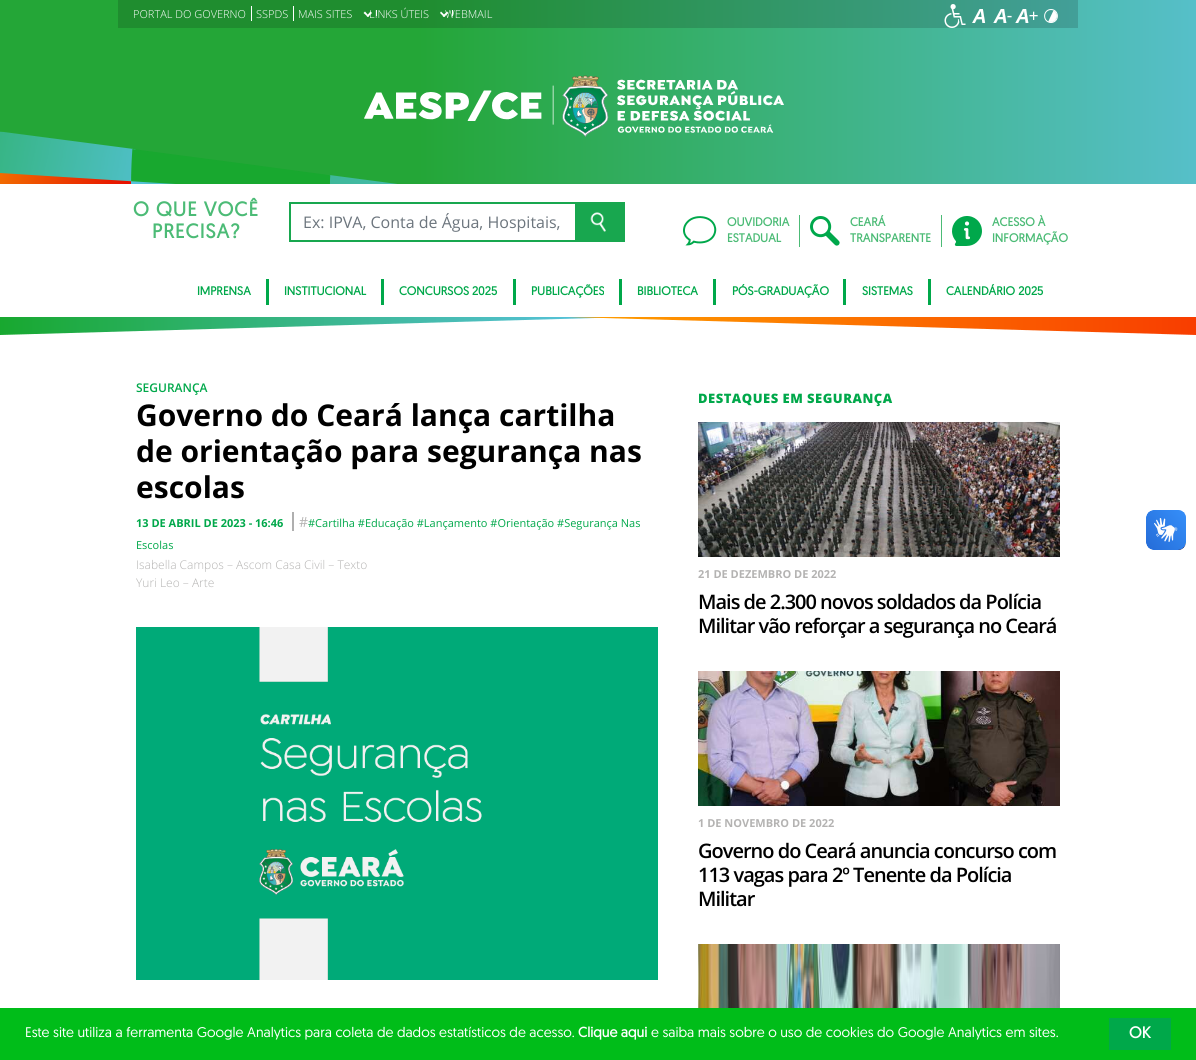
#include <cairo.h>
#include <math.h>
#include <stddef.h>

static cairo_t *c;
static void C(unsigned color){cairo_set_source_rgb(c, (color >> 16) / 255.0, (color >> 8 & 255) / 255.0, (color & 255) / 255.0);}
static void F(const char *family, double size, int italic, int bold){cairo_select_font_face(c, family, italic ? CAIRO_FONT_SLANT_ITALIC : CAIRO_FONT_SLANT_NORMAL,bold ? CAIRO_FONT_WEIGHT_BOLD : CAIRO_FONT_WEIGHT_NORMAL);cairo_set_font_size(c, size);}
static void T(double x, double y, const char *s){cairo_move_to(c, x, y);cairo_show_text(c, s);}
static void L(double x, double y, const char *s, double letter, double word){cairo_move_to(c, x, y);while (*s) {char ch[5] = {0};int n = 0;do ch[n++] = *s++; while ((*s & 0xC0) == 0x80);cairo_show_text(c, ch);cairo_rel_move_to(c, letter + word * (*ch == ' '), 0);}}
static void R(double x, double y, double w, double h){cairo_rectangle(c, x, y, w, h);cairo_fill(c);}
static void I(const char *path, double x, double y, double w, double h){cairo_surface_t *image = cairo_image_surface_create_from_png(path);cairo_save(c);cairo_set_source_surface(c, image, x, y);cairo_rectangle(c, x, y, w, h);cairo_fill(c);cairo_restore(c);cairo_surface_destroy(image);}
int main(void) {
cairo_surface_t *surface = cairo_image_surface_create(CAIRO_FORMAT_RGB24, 1196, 1060);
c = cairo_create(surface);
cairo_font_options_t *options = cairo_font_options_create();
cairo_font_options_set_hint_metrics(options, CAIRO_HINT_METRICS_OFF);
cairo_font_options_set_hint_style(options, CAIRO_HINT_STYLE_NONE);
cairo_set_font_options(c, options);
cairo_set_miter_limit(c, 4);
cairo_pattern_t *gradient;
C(0xffffff);
cairo_paint(c);
gradient = cairo_pattern_create_linear(1196,168,0,168);
cairo_pattern_add_color_stop_rgba(gradient,0,0.337,0.749,0.788,1);
cairo_pattern_add_color_stop_rgba(gradient,.65,0.141,0.651,0.216,1);
cairo_set_source(c,gradient);
cairo_pattern_destroy(gradient);
R(0,0,1196,184);
gradient = cairo_pattern_create_linear(1196,168,0,168);
cairo_pattern_add_color_stop_rgba(gradient,0,0.286,0.635,0.671,1);
cairo_pattern_add_color_stop_rgba(gradient,.65,0.122,0.553,0.184,1);
cairo_set_source(c,gradient);
cairo_pattern_destroy(gradient);
R(118,0,960,28);
I("1.png",0,131,397,53);
F("Open Sans Light",11,0,0);
C(0xffffff);
T(133,18,"PORTAL DO GOVERNO");
R(251,6,1,15);
T(256,18,"SSPDS");
R(293,6,1,15);
R(376,10,1,6);
T(298,18,"MAIS SITES");
cairo_new_path(c);
cairo_move_to(c,370.5,11.5);
cairo_line_to(c,372,13);
cairo_line_to(c,368,17);
cairo_line_to(c,366.5,16);
cairo_close_path(c);
cairo_fill(c);
cairo_new_path(c);
cairo_move_to(c,365,11.5);
cairo_line_to(c,369,16);
cairo_line_to(c,368,17);
cairo_line_to(c,363.5,13);
cairo_close_path(c);
cairo_fill(c);
R(452,10,1,6);
T(369,18,"LINKS ÚTEIS");
cairo_new_path(c);
cairo_move_to(c,447,11.5);
cairo_line_to(c,448.5,13);
cairo_line_to(c,444,17);
cairo_line_to(c,442.5,16);
cairo_close_path(c);
cairo_fill(c);
cairo_new_path(c);
cairo_move_to(c,441,11.5);
cairo_line_to(c,445.5,16);
cairo_line_to(c,444,17);
cairo_line_to(c,440,13);
cairo_close_path(c);
cairo_fill(c);
T(445,18,"WEBMAIL");
I("2.png",944,4,22,24);
I("3.png",972,9,14,14);
I("4.png",993,9,19,14);
I("5.png",1015,9,23,14);
I("6.png",1044,9,14,14);
I("7.png",364,75,420,62);
F("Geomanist",20,0,1);
C(0x4cbb76);
L(133,216,"O QUE VOCÊ",1,0);
L(152,238,"PRECISA?",1,0);
C(0x18a74f);
R(289,202,286,2);
R(289,240,286,2);
R(289,202,2,40);
F("Open Sans",16,0,0);
C(0x6c757d);
T(303,228,"Ex: IPVA, Conta de Água, Hospitais,");
C(0x18a74f);
R(575,202,50,40);
I("8.png",590,212,16,20);
C(0x4cbb76);
R(799,215,1,32);
I("9.png",683,216,34,30);
F("Geomanist",12,0,1);
T(727,226,"OUVIDORIA");
T(727,242,"ESTADUAL");
R(941,215,1,32);
I("10.png",810,216,30,30);
T(850,226,"CEARÁ");
T(850,242,"TRANSPARENTE");
I("11.png",952,216,30,30);
T(992,226,"ACESSO À");
T(992,242,"INFORMAÇÃO");
C(0x00a84a);
R(266,279,3,26);
T(197,295,"IMPRENSA");
R(381,279,3,26);
T(284,295,"INSTITUCIONAL");
R(513,279,3,26);
T(399,295,"CONCURSOS 2025");
R(619,279,3,26);
T(531,295,"PUBLICAÇÕES");
R(713,279,3,26);
T(637,295,"BIBLIOTECA");
R(843,279,3,26);
T(732,295,"PÓS-GRADUAÇÃO");
R(928,279,3,26);
T(862,295,"SISTEMAS");
T(946,295,"CALENDÁRIO 2025");
gradient = cairo_pattern_create_linear(-.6,332,629,332);
cairo_pattern_add_color_stop_rgba(gradient,0,0.094,0.659,0.184,1);
cairo_pattern_add_color_stop_rgba(gradient,1,0.357,0.769,0.91,1);
cairo_set_source(c,gradient);
cairo_pattern_destroy(gradient);
cairo_new_path(c);
cairo_move_to(c,0,317);
cairo_line_to(c,0,335);
cairo_line_to(c,629,317);
cairo_close_path(c);
cairo_fill(c);
gradient = cairo_pattern_create_linear(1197,320,567,320);
cairo_pattern_add_color_stop_rgba(gradient,0,0.973,0.239,0,1);
cairo_pattern_add_color_stop_rgba(gradient,1,1,0.631,0,1);
cairo_set_source(c,gradient);
cairo_pattern_destroy(gradient);
cairo_new_path(c);
cairo_move_to(c,567,317);
cairo_line_to(c,1196,335);
cairo_line_to(c,1196,317);
cairo_close_path(c);
cairo_fill(c);
F("Open Sans SemiBold",12,0,0);
C(0x00a84a);
T(136,392,"SEGURANÇA");
F("Open Sans",30,0,1);
C(0x000000);
T(136,426,"Governo do Ceará lança cartilha");
T(136,462,"de orientação para segurança nas");
T(136,498,"escolas");
F("Open Sans",11,0,1);
C(0x00a84a);
T(136,527,"13 DE ABRIL DE 2023 - 16:46");
F("Open Sans",14,0,0);
C(0xb4b3b2);
T(299,527,"#");
C(0xafafaf);
R(292,512,2,19);
F("Open Sans",11,0,0);
C(0x00a84a);
T(308,527,"#Cartilha #Educação #Lançamento #Orientação #Segurança Nas");
T(136,549,"Escolas");
F("Open Sans Light",12,0,0);
C(0xb4b3b2);
T(136,569,"Isabella Campos – Ascom Casa Civil – Texto");
T(136,587,"Yuri Leo – Arte");
I("12.png",136,627,522,353);
F("Open Sans ExtraBold",13,0,0);
C(0x00a84a);
L(698,403,"DESTAQUES EM SEGURANÇA",.5,0);
I("13.png",698,422,362,135);
F("Open Sans",11,0,1);
C(0xb4b3b2);
T(698,578,"21 DE DEZEMBRO DE 2022");
F("Open Sans SemiBold",20,0,0);
C(0x000000);
L(698,609,"Mais de 2.300 novos soldados da Polícia",-1,0);
L(698,633,"Militar vão reforçar a segurança no Ceará",-1,0);
I("14.png",698,671,362,135);
F("Open Sans",11,0,1);
C(0xb4b3b2);
T(698,827,"1 DE NOVEMBRO DE 2022");
F("Open Sans SemiBold",20,0,0);
C(0x000000);
L(698,858,"Governo do Ceará anuncia concurso com",-1,0);
L(698,882,"113 vagas para 2º Tenente da Polícia",-1,0);
L(698,906,"Militar",-1,0);
I("15.png",698,944,362,64);
I("16.png",1146,510,40,40);
I("17.png",1146,510,40,40);
C(0x00bd19);
R(0,1008,1196,52);
F("Geomanist",14,0,0);
C(0xffffff);
T(25,1037,"Este site utiliza a ferramenta Google Analytics para coleta de dados estatísticos de acesso.");
F("Geomanist",14,0,1);
T(578,1037,"Clique aqui");
F("Geomanist",14,0,0);
T(651,1037,"e saiba mais sobre o uso de cookies do Google Analytics em sites.");
C(0x00a84a);
R(1109,1018,62,32);
F("Geomanist",16,0,1);
C(0xffffff);
T(1129,1038,"OK");
cairo_surface_write_to_png(surface, "o.png");
cairo_font_options_destroy(options);
cairo_destroy(c);
cairo_surface_destroy(surface);
return 0;
}
